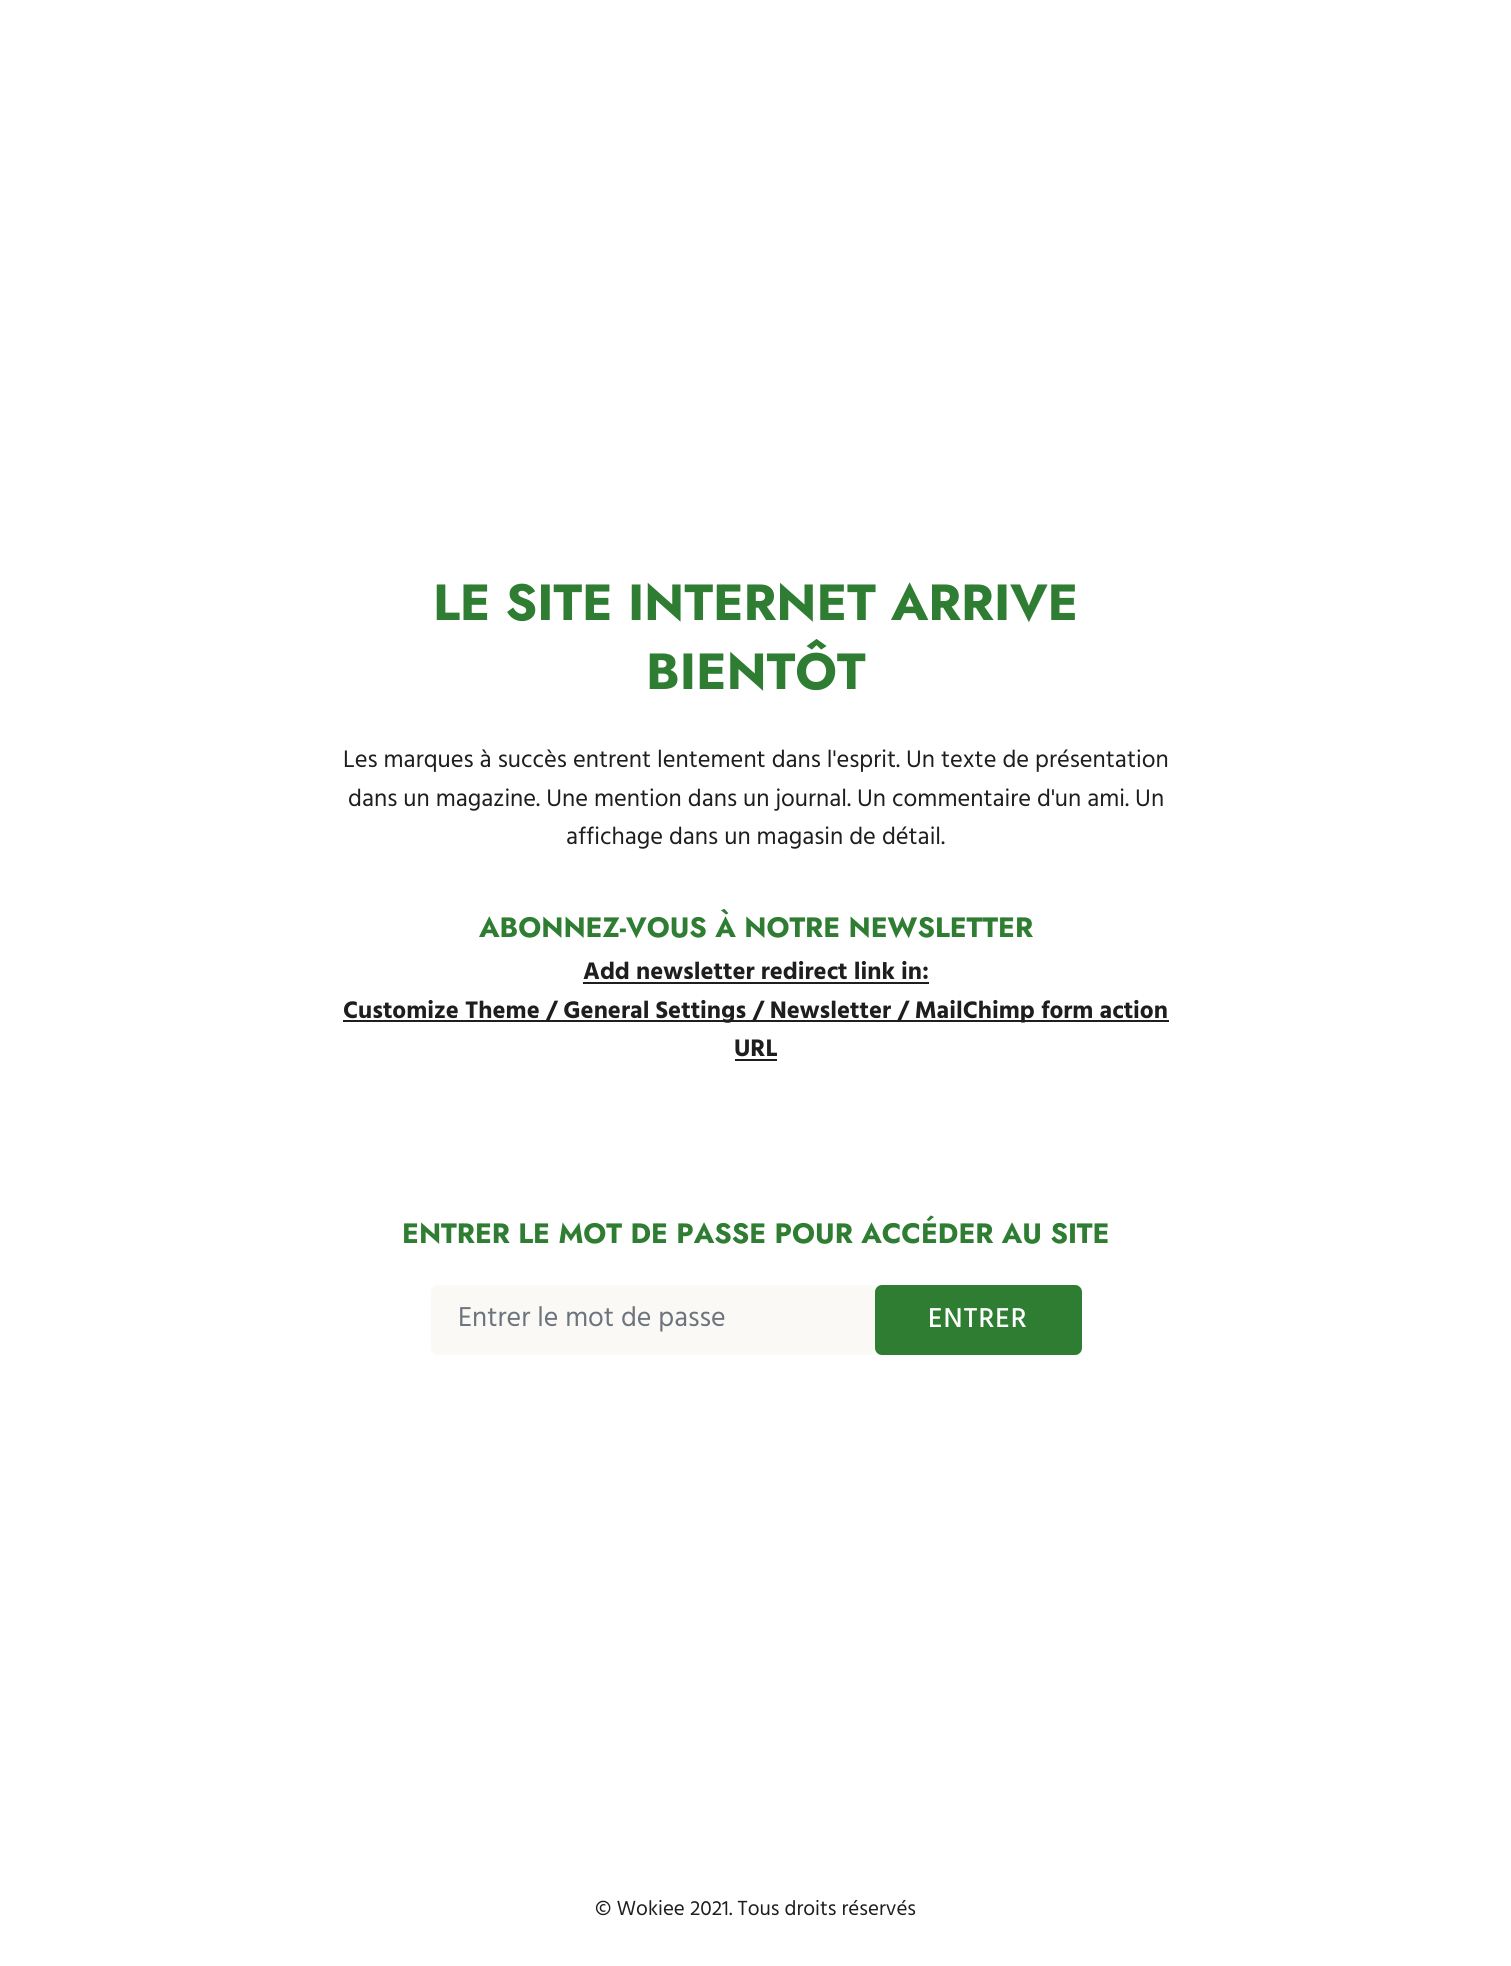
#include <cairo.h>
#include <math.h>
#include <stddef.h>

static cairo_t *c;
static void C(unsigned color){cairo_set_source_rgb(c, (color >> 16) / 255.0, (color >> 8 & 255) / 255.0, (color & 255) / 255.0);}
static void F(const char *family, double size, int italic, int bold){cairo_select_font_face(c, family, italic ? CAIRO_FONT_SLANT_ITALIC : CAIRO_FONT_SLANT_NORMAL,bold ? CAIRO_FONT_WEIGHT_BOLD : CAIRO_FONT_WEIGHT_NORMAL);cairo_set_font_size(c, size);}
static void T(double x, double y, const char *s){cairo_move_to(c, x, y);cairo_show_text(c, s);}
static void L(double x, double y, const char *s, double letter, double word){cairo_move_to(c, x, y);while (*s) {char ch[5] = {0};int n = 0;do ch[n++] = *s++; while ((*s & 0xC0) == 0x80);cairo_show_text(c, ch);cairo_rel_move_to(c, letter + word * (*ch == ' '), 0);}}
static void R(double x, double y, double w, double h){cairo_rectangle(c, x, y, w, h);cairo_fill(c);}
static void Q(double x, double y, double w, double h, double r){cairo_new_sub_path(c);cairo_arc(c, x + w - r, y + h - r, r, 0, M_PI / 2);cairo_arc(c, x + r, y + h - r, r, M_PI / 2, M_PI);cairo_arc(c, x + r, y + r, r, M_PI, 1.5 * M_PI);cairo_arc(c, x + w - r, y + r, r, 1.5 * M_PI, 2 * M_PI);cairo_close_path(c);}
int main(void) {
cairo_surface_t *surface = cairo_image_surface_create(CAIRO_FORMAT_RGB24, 1511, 1966);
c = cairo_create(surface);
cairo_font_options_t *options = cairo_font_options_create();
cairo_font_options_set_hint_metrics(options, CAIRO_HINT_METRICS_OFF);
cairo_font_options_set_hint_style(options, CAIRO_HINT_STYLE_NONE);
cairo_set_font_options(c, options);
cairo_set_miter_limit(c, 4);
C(0xffffff);
cairo_paint(c);
F("Jost",50.75,0,1);
C(0x2e7d32);
T(433,620,"LE SITE INTERNET ARRIVE");
T(646,689,"BIENTÔT");
F("Hind",24.5,0,0);
C(0x1e1e1e);
T(343,767,"Les marques à succès entrent lentement dans l'esprit. Un texte de présentation");
T(348,806,"dans un magazine. Une mention dans un journal. Un commentaire d'un ami. Un");
T(566,844,"affichage dans un magasin de détail.");
F("Jost",28,0,1);
C(0x2e7d32);
T(479,937,"ABONNEZ-VOUS À NOTRE NEWSLETTER");
F("Hind",24.5,0,1);
C(0x1e1e1e);
T(583,979,"Add newsletter redirect link in:");
R(583,982,346,2);
R(343,1020,826,2);
T(343,1018,"Customize Theme / General Settings / Newsletter / MailChimp form action");
T(734,1056,"URL");
R(735,1059,42,2);
F("Jost",28,0,1);
C(0x2e7d32);
T(402,1243,"ENTRER LE MOT DE PASSE POUR ACCÉDER AU SITE");
C(0xfaf9f6);
Q(431,1285,444,70,7);
cairo_fill(c);
F("Hind",28,0,0);
C(0x6c757d);
T(458,1326,"Entrer le mot de passe");
C(0x2e7d32);
Q(875,1285,207,70,7);
cairo_fill(c);
F("Hind Medium",28,0,0);
C(0xffffff);
L(928,1327,"ENTRER",1,0);
F("Hind",21,0,0);
C(0x1e1e1e);
T(595,1915,"© Wokiee 2021. Tous droits réservés");
cairo_surface_write_to_png(surface, "o.png");
cairo_font_options_destroy(options);
cairo_destroy(c);
cairo_surface_destroy(surface);
return 0;
}
